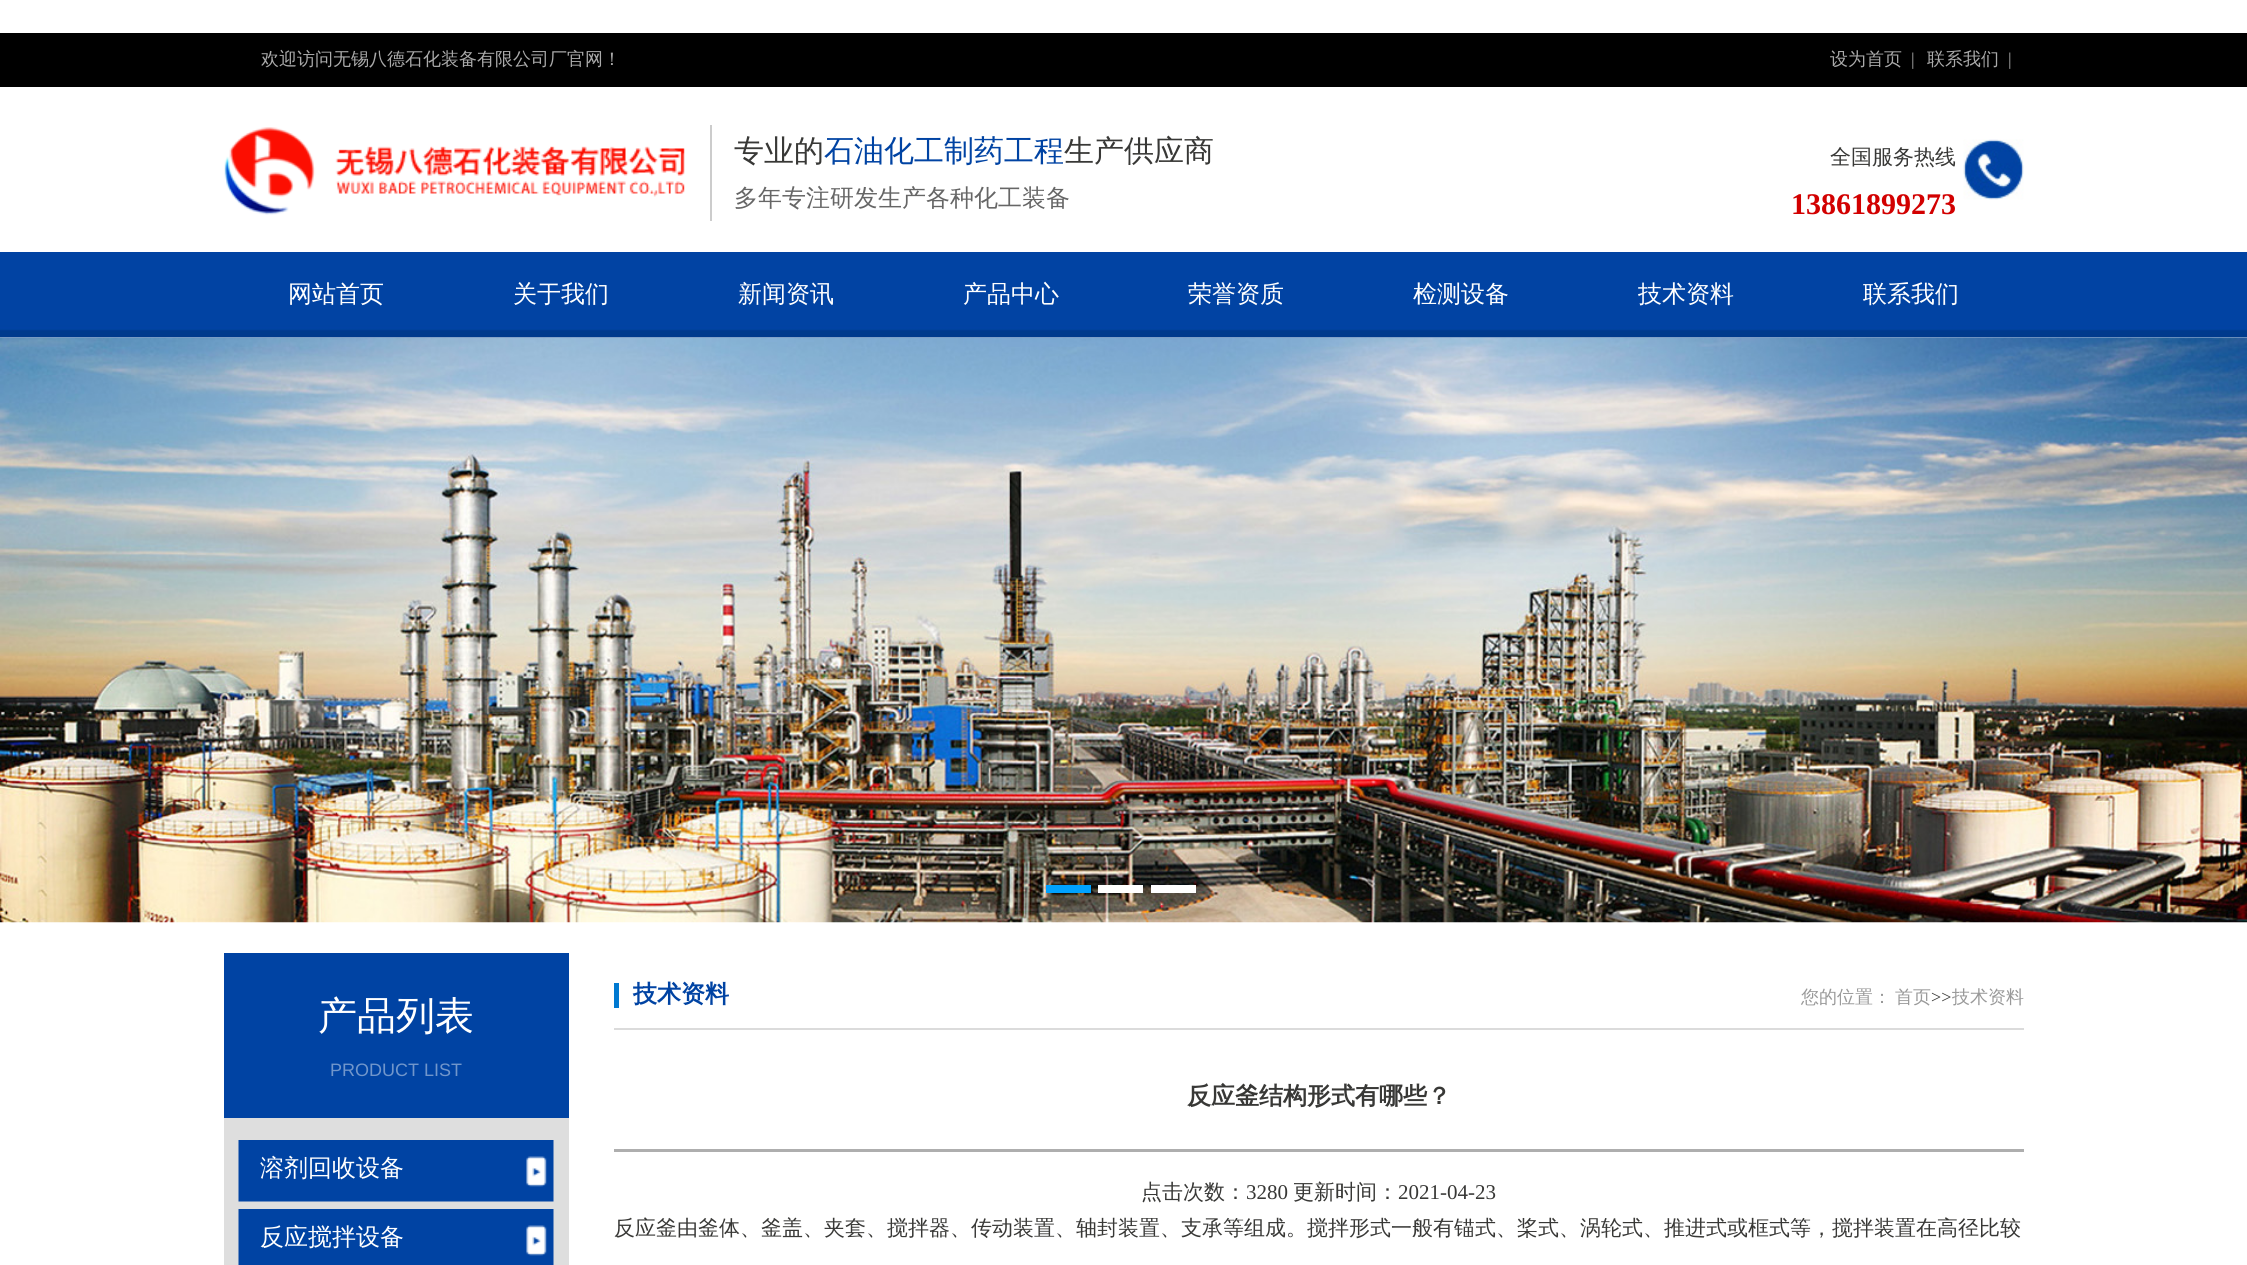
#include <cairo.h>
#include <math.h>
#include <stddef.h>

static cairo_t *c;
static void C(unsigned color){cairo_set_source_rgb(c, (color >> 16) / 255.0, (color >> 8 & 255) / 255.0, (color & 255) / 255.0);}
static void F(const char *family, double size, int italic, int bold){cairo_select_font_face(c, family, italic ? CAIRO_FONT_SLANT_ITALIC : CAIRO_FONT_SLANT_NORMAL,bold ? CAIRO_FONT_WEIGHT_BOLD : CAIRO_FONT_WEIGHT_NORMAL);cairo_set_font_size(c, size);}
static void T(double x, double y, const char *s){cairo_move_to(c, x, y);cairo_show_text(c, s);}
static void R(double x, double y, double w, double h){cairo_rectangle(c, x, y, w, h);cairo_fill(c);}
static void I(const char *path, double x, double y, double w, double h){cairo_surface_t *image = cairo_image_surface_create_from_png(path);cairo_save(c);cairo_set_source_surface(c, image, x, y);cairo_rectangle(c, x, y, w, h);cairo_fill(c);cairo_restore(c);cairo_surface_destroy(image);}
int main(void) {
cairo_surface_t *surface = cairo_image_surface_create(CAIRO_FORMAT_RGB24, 2247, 1265);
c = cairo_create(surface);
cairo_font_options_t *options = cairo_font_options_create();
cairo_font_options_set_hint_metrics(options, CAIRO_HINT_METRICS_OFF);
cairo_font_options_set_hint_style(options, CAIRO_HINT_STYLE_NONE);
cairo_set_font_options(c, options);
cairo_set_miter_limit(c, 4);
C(0xffffff);
cairo_paint(c);
C(0x000000);
R(0,33,2247,54);
F("WenQuanYi Zen Hei Medium",18,0,0);
C(0xaaaaaa);
T(261,65,"欢迎访问无锡八德石化装备有限公司厂官网！");
T(1830,65,"设为首页");
F("Liberation Serif",18,0,0);
T(1911,65,"|");
F("WenQuanYi Zen Hei Medium",18,0,0);
T(1927,65,"联系我们");
F("Liberation Serif",18,0,0);
T(2008,65,"|");
I("1.png",224,127,461,88);
C(0xcccccc);
R(710,125,2,96);
F("WenQuanYi Zen Hei Medium",30,0,0);
C(0x383836);
T(734,161,"专业的");
C(0x0043a3);
T(824,161,"石油化工制药工程");
C(0x383836);
T(1064,161,"生产供应商");
F("WenQuanYi Zen Hei Medium",24,0,0);
C(0x666666);
T(734,206,"多年专注研发生产各种化工装备");
F("WenQuanYi Zen Hei Medium",21,0,0);
C(0x383836);
T(1830,164,"全国服务热线");
F("Liberation Serif",30,0,1);
C(0xd20000);
T(1791,214,"13861899273");
I("2.png",1963,139,61,61);
I("3.png",0,252,2247,86);
F("WenQuanYi Zen Hei Medium",24,0,0);
C(0xffffff);
T(288,302,"网站首页");
T(513,302,"关于我们");
T(738,302,"新闻资讯");
T(963,302,"产品中心");
T(1188,302,"荣誉资质");
T(1413,302,"检测设备");
T(1638,302,"技术资料");
T(1863,302,"联系我们");
I("4.png",0,337,2247,586);
C(0x00a2ff);
R(1046,885,45,8);
C(0xffffff);
R(1098,885,45,8);
R(1151,885,45,8);
C(0x0043a3);
R(224,953,345,165);
F("WenQuanYi Zen Hei Medium",39,0,0);
C(0xffffff);
T(318,1029,"产品列表");
F("Liberation Sans",18,0,0);
C(0x7196cb);
T(330,1076,"PRODUCT LIST");
C(0xdedede);
R(224,1118,345,147);
I("5.png",238,1140,316,62);
F("WenQuanYi Zen Hei Medium",24,0,0);
C(0xffffff);
T(260,1176,"溶剂回收设备");
I("6.png",238,1209,316,56);
T(260,1245,"反应搅拌设备");
C(0xdbdbdb);
R(614,1028,1410,2);
C(0x0079d1);
R(614,983,5,25);
F("WenQuanYi Zen Hei",24,0,1);
C(0x0043a3);
T(633,1002,"技术资料");
F("WenQuanYi Zen Hei Medium",18,0,0);
C(0x999999);
T(1801,1003,"您的位置：");
T(1895,1003,"首页");
F("Liberation Serif",18,0,0);
C(0x383836);
T(1931,1003,">>");
F("WenQuanYi Zen Hei Medium",18,0,0);
C(0x999999);
T(1952,1003,"技术资料");
C(0xaeaeae);
R(614,1149,1410,3);
F("WenQuanYi Zen Hei",24,0,1);
C(0x383836);
T(1187,1104,"反应釜结构形式有哪些？");
F("WenQuanYi Zen Hei Medium",21,0,0);
T(1141,1199,"点击次数：");
F("Liberation Serif",21,0,0);
T(1246,1199,"3280");
F("WenQuanYi Zen Hei Medium",21,0,0);
T(1293,1199,"更新时间：");
F("Liberation Serif",21,0,0);
T(1398,1199,"2021-04-23");
F("WenQuanYi Zen Hei Medium",21,0,0);
T(614,1235,"反应釜由釜体、釜盖、夹套、搅拌器、传动装置、轴封装置、支承等组成。搅拌形式一般有锚式、桨式、涡轮式、推进式或框式等，搅拌装置在高径比较");
cairo_surface_write_to_png(surface, "o.png");
cairo_font_options_destroy(options);
cairo_destroy(c);
cairo_surface_destroy(surface);
return 0;
}
